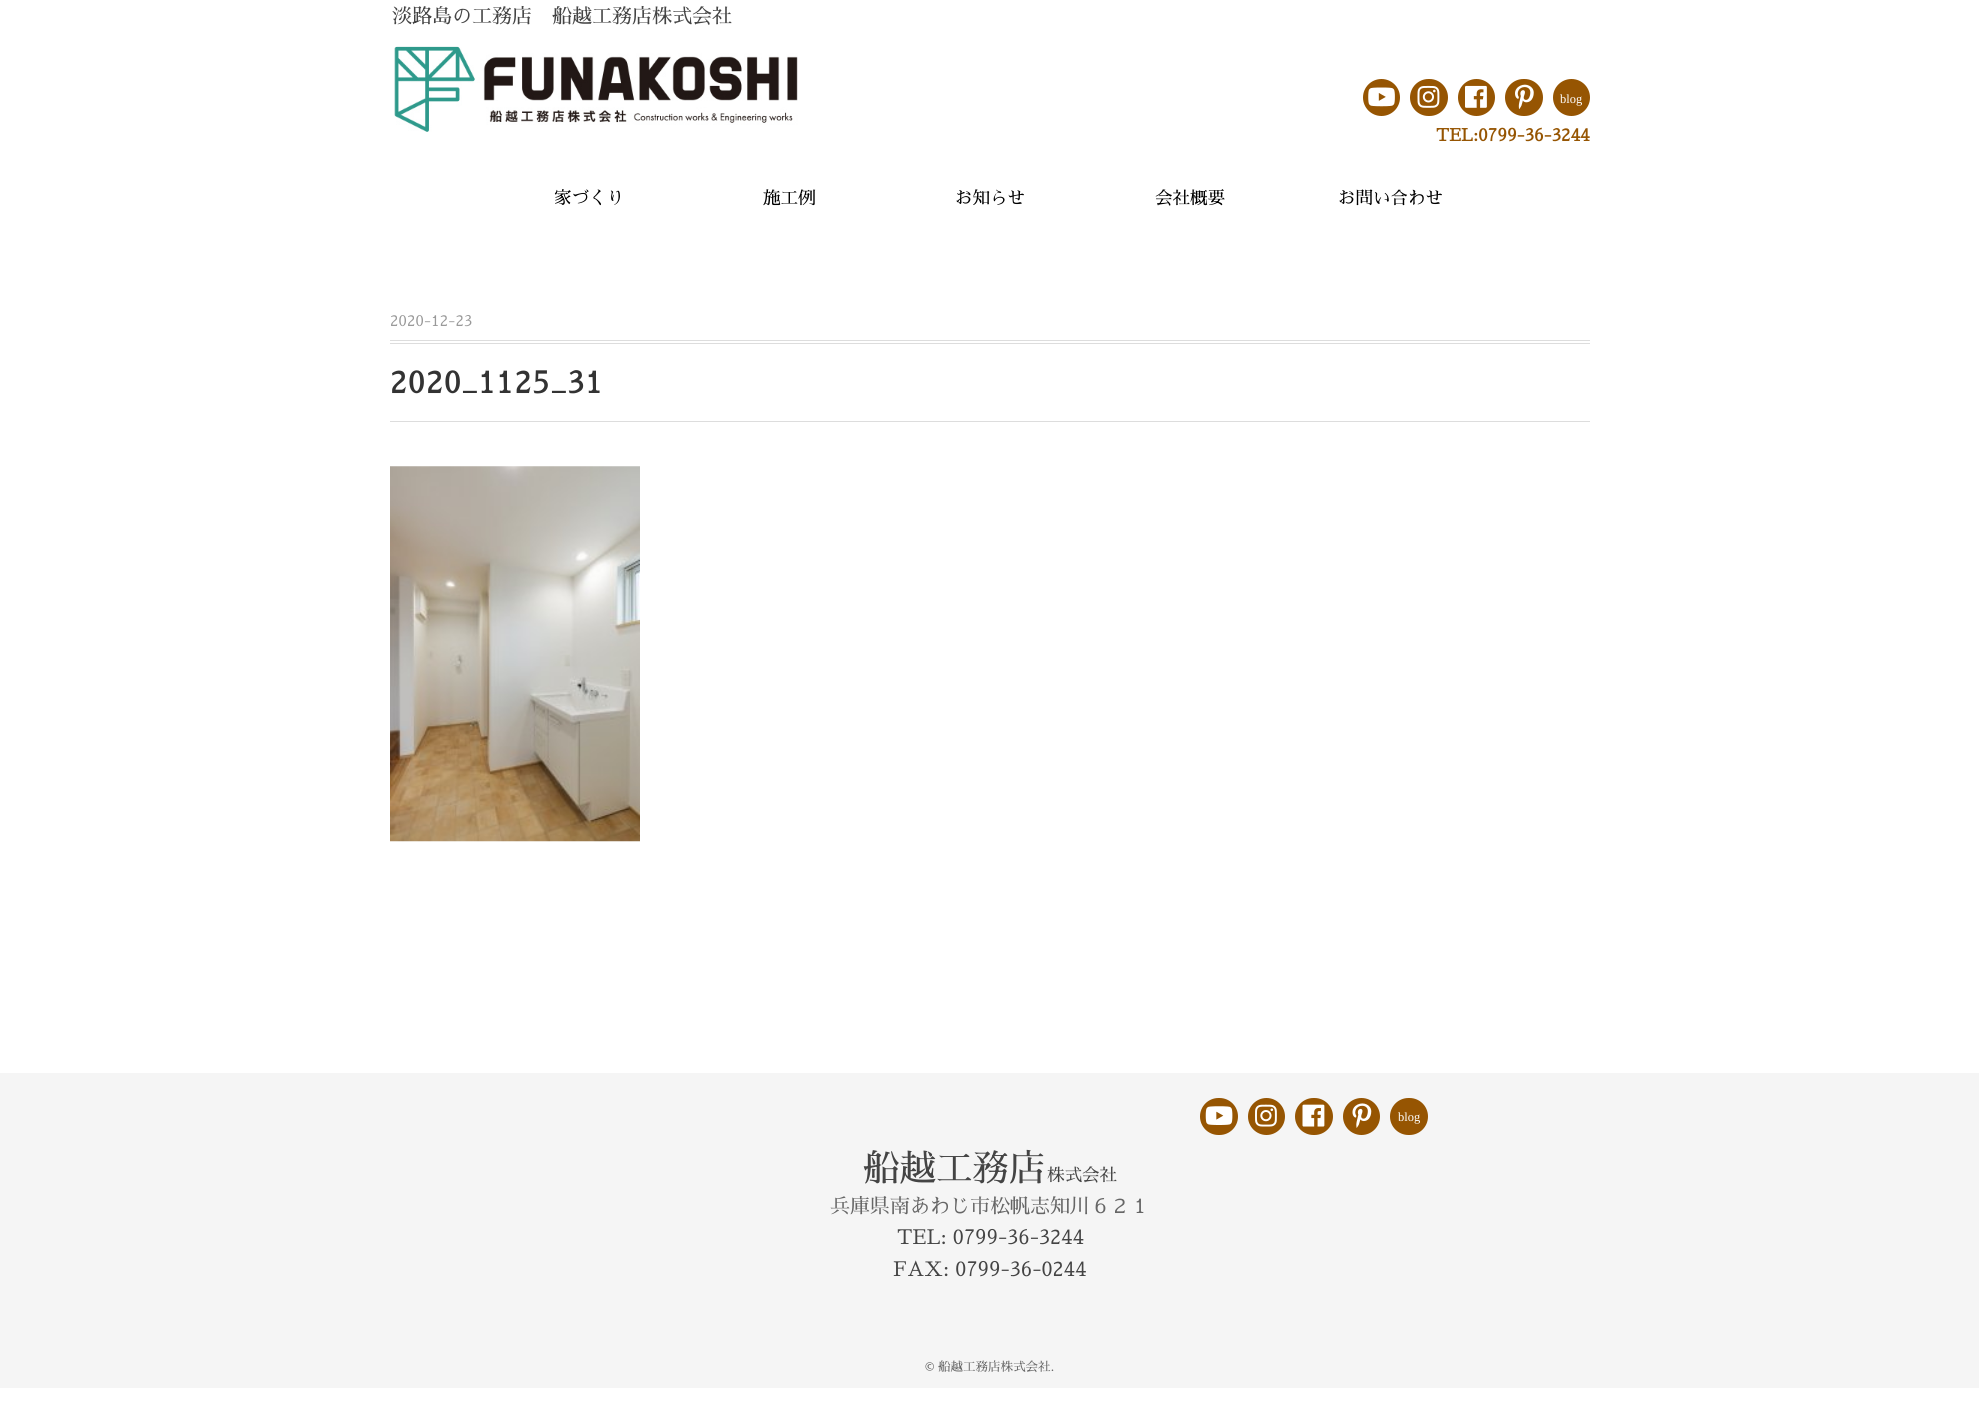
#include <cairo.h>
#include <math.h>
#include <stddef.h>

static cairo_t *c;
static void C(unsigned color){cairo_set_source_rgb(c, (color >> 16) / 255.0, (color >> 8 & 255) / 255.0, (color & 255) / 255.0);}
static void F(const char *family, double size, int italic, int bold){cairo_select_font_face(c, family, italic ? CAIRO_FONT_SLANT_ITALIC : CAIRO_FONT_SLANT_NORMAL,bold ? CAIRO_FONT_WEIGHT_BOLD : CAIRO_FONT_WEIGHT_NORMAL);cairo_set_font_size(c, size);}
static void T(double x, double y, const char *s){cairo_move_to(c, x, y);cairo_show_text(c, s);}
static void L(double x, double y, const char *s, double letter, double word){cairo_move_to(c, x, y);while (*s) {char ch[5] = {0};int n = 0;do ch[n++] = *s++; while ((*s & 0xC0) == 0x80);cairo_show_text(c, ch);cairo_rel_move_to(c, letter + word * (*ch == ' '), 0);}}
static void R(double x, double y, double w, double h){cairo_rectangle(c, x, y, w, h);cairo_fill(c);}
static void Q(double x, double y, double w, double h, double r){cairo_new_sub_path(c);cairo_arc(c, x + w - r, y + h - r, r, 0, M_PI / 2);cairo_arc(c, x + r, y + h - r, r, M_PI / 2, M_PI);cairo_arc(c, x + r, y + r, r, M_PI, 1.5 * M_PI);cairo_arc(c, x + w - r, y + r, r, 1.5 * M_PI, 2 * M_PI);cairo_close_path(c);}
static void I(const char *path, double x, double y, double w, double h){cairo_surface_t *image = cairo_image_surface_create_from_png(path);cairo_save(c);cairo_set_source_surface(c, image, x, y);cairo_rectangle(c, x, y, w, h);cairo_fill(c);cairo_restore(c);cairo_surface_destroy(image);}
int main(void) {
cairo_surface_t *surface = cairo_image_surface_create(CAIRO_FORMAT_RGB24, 1979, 1422);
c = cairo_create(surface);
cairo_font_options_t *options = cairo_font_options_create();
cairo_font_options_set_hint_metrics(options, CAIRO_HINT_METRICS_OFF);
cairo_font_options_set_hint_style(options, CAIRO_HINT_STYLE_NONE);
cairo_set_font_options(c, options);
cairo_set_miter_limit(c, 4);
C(0xffffff);
cairo_paint(c);
F("Sawarabi Mincho",20,0,0);
C(0x444444);
T(392,23,"淡路島の工務店　船越工務店株式会社");
I("1.png",394,46,404,86);
C(0x965502);
cairo_arc(c,1381.5,97.5,18.5,0,2 * M_PI);
cairo_fill(c);
I("2.png",1368,87,27,20);
Q(1410,79,38,37,18.5);
cairo_fill(c);
I("3.png",1417,85,23,23);
cairo_arc(c,1476.5,97.5,18.5,0,2 * M_PI);
cairo_fill(c);
I("4.png",1465,85,22,23);
Q(1505,79,38,37,18.5);
cairo_fill(c);
I("5.png",1515,84,19,25);
cairo_arc(c,1571.5,97.5,18.5,0,2 * M_PI);
cairo_fill(c);
F("Liberation Serif",12.5,0,0);
C(0xffffff);
T(1560,103,"blog");
F("Sawarabi Mincho",17,0,1);
C(0x965502);
T(1436,141,"TEL:0799-36-3244");
F("Sawarabi Mincho",17.5,0,0);
C(0x000000);
T(554,204,"家づくり");
T(763,204,"施工例");
T(955,204,"お知らせ");
T(1155,204,"会社概要");
T(1338,204,"お問い合わせ");
F("Sawarabi Mincho",15,0,0);
C(0x999999);
L(390,326,"2020-12-23",.25,0);
C(0xdddddd);
R(390,340,1200,1);
R(390,343,1200,1);
R(390,421,1200,1);
F("Sawarabi Mincho",30,0,1);
C(0x333333);
L(390,393,"2020_1125_31",1.5,0);
I("6.png",390,466,250,376);
C(0xf5f5f5);
R(0,1073,1979,315);
C(0x965502);
Q(1200,1098,38,37,18.5);
cairo_fill(c);
I("7.png",1205,1106,28,19);
cairo_arc(c,1266.5,1116.5,18.5,0,2 * M_PI);
cairo_fill(c);
I("8.png",1255,1104,22,23);
Q(1295,1098,38,37,18.5);
cairo_fill(c);
I("9.png",1302,1104,23,23);
cairo_arc(c,1361.5,1116.5,18.5,0,2 * M_PI);
cairo_fill(c);
I("10.png",1352,1103,20,25);
Q(1390,1098,38,37,18.5);
cairo_fill(c);
F("Liberation Serif",12.5,0,0);
C(0xffffff);
T(1398,1121,"blog");
F("Sawarabi Mincho",36.5,0,0);
C(0x444444);
T(863,1181,"船越工務店");
F("Sawarabi Mincho",17.5,0,0);
T(1047,1181,"株式会社");
F("Sawarabi Mincho",20,0,0);
C(0x666666);
T(830,1213,"兵庫県南あわじ市松帆志知川６２１");
C(0x444444);
T(897,1244,"TEL: 0799-36-3244");
T(893,1276,"FAX: 0799-36-0244");
F("Sawarabi Mincho",12.5,0,0);
C(0x666666);
T(925,1371,"© 船越工務店株式会社.");
cairo_surface_write_to_png(surface, "o.png");
cairo_font_options_destroy(options);
cairo_destroy(c);
cairo_surface_destroy(surface);
return 0;
}
